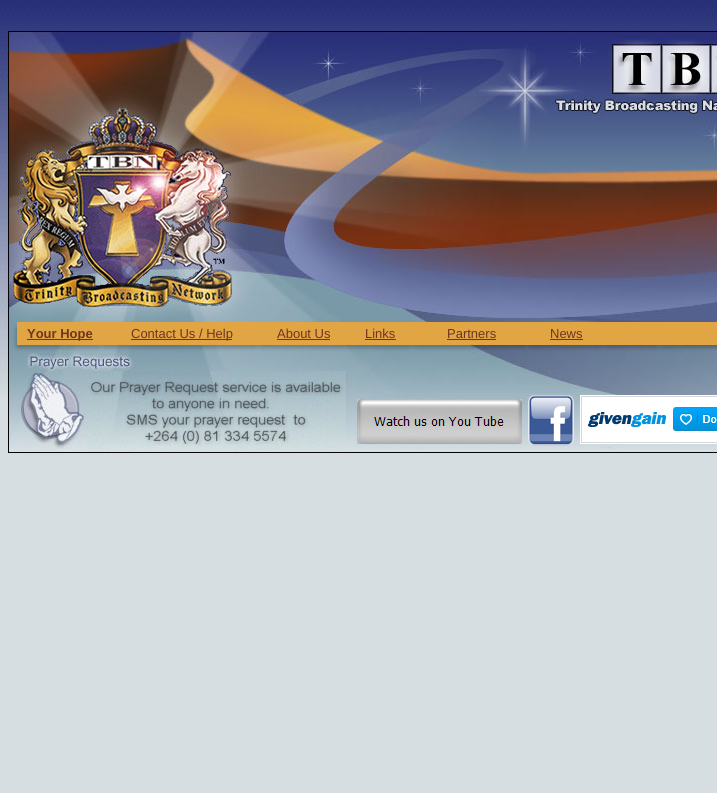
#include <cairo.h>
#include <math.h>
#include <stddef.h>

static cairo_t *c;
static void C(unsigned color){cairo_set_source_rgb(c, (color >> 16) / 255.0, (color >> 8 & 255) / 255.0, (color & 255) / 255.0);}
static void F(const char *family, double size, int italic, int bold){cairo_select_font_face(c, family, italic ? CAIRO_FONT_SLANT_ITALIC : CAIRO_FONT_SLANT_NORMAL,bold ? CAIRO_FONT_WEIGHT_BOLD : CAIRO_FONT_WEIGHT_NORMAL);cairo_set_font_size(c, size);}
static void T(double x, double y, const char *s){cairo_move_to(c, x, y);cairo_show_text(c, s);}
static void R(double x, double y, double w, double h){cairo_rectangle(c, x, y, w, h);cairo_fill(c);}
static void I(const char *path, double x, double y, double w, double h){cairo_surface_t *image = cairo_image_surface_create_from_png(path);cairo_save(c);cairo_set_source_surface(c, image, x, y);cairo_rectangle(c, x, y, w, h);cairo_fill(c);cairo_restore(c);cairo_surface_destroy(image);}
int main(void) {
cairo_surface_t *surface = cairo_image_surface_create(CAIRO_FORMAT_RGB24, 717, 793);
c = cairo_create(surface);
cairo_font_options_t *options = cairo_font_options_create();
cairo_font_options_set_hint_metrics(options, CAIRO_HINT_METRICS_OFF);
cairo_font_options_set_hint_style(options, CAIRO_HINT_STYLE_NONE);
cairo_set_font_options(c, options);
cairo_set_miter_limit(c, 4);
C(0xffffff);
cairo_paint(c);
I("1.png",0,0,717,793);
I("2.png",8,31,252,65);
I("3.png",260,31,457,65);
I("4.png",8,96,252,226);
I("5.png",260,96,457,117);
I("6.png",260,213,457,109);
I("7.png",8,322,9,131);
C(0xe2a543);
R(17,322,700,23);
C(0x6d361f);
R(27,339,66,1);
F("Liberation Sans",13,0,1);
T(27,338,"Your Hope");
R(131,339,101,1);
F("Liberation Sans",13,0,0);
T(131,338,"Contact Us / Help");
T(277,338,"About Us");
R(277,339,53,1);
T(365,338,"Links");
R(365,339,31,1);
T(447,338,"Partners");
R(447,339,49,1);
T(550,338,"News");
R(550,339,33,1);
I("8.png",17,345,243,26);
I("9.png",260,345,87,26);
I("10.png",347,345,370,108);
I("11.png",357,399,165,45);
I("12.png",528,394,46,52);
I("13.png",580,395,137,49);
I("14.png",17,371,70,82);
I("15.png",87,371,260,82);
cairo_surface_write_to_png(surface, "o.png");
cairo_font_options_destroy(options);
cairo_destroy(c);
cairo_surface_destroy(surface);
return 0;
}
